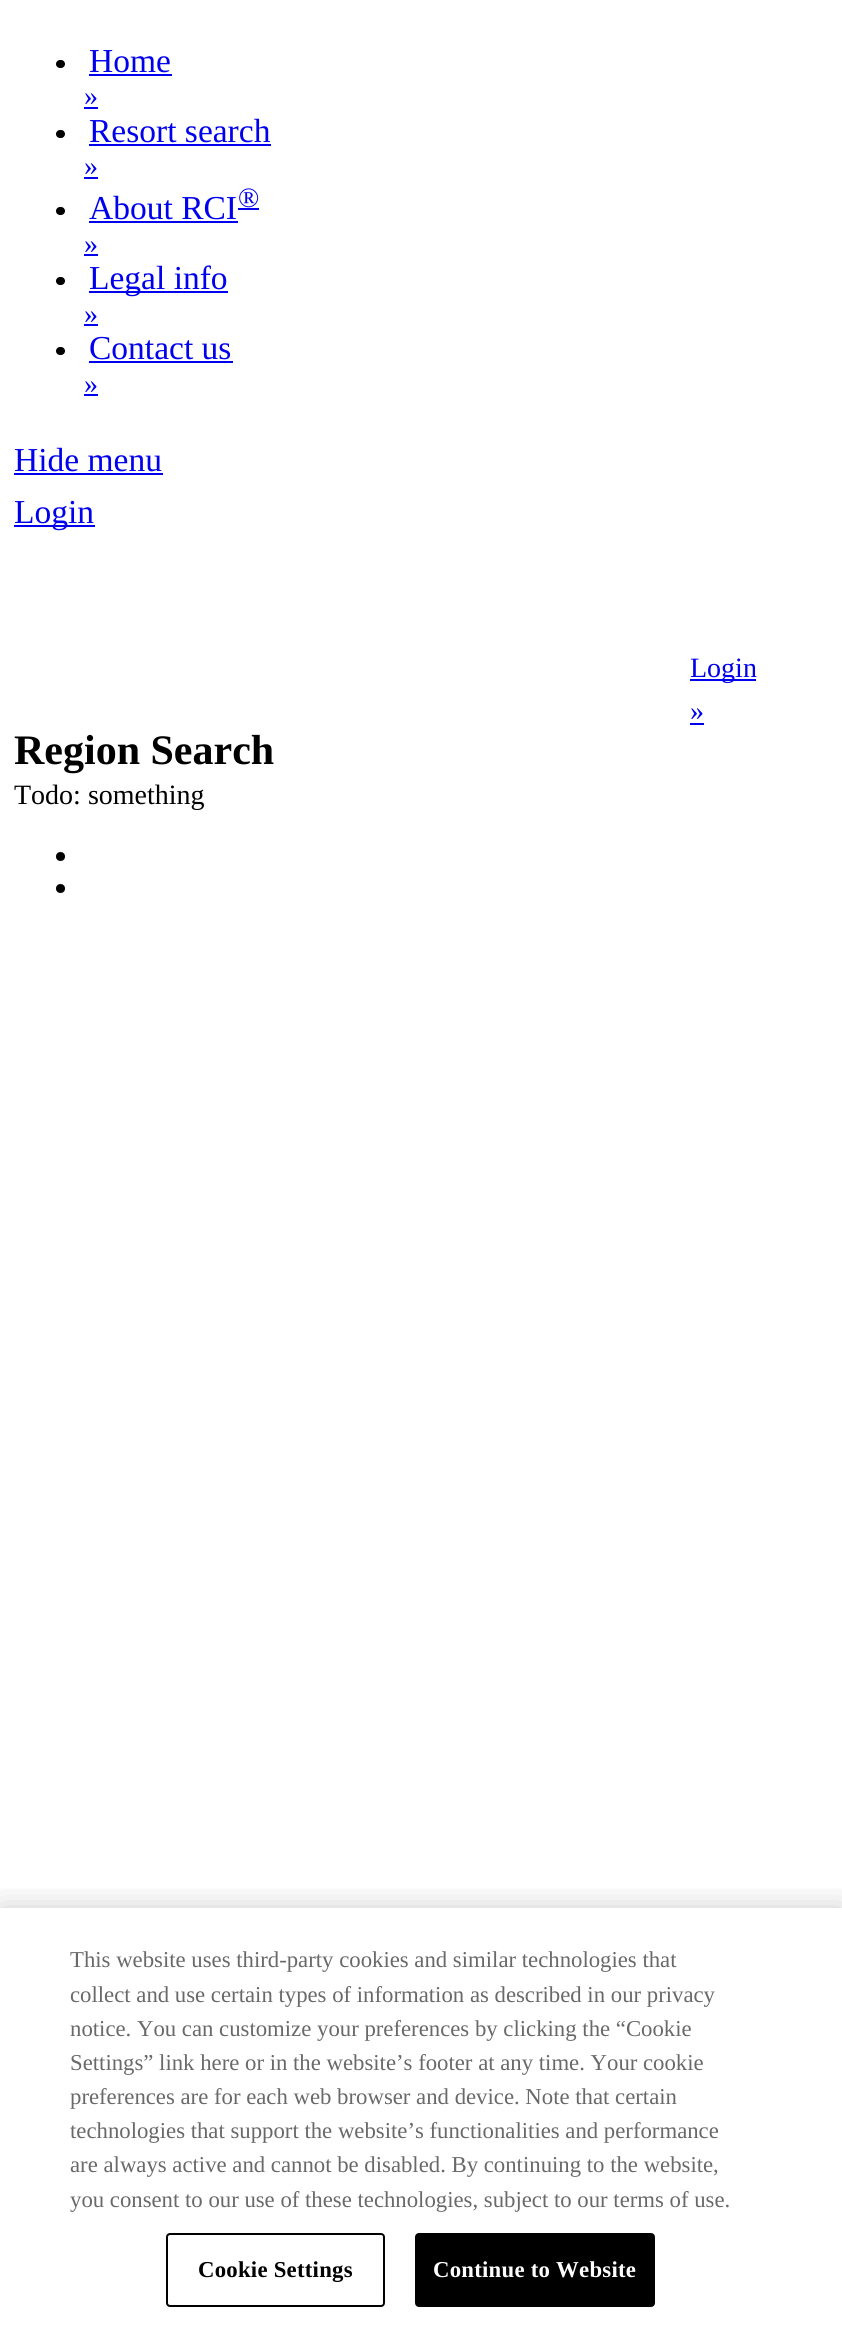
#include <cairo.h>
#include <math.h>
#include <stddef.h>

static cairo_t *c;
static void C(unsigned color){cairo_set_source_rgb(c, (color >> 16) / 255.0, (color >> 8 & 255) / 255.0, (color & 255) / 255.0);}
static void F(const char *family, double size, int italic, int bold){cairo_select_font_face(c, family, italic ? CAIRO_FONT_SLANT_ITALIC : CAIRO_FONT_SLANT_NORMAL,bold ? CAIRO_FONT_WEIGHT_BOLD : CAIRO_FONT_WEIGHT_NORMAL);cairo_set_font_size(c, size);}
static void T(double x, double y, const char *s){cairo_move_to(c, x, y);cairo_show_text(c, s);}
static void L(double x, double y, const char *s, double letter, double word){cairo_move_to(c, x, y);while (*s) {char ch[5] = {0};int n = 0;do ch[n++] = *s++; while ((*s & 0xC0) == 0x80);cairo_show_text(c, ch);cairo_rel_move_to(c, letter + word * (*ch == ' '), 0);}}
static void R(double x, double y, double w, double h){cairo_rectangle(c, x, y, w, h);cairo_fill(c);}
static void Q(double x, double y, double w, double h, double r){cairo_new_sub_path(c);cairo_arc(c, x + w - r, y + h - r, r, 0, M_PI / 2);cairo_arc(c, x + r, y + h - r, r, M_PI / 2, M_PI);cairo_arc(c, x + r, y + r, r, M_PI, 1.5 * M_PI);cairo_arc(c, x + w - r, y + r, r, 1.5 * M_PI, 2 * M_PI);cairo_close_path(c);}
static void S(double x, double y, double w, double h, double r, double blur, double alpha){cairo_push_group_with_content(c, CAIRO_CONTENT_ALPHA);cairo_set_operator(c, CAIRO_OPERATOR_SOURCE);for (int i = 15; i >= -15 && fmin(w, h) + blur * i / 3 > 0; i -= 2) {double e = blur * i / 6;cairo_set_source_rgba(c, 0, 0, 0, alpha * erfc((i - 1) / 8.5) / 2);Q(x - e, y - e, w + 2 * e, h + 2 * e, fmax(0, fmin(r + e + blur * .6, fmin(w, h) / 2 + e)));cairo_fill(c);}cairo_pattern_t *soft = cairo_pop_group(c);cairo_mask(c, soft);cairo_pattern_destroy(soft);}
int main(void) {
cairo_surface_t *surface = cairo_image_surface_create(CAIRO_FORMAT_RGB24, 842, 2333);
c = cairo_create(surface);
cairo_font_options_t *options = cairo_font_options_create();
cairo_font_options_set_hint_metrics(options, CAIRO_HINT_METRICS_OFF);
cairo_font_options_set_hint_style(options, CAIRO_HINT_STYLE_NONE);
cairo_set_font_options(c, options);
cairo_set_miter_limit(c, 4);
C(0xffffff);
cairo_paint(c);
C(0x000000);
Q(56,60,9,8,4);
cairo_fill(c);
F("Liberation Serif",33.5,0,0);
C(0x0000ee);
T(89,72,"Home");
R(89,74,83,2);
F("Liberation Serif",28,0,0);
T(84,105,"»");
R(84,107,14,2);
C(0x000000);
Q(56,130,9,8,4);
cairo_fill(c);
F("Liberation Serif",33.5,0,0);
C(0x0000ee);
T(89,142,"Resort search");
R(89,144,182,2);
F("Liberation Serif",28,0,0);
T(84,175,"»");
R(84,177,14,2);
C(0x000000);
Q(56,207,9,8,4);
cairo_fill(c);
F("Liberation Serif",33.5,0,0);
C(0x0000ee);
T(89,219,"About RCI");
R(89,221,149,2);
F("Liberation Serif",28,0,0);
T(238,207,"®");
R(238,208,21,2);
T(84,253,"»");
R(84,254,14,2);
C(0x000000);
Q(56,277,9,8,4);
cairo_fill(c);
C(0x0000ee);
R(89,291,139,2);
F("Liberation Serif",33.5,0,0);
T(89,289,"Legal info");
F("Liberation Serif",28,0,0);
T(84,323,"»");
R(84,324,14,2);
C(0x000000);
Q(56,347,9,8,4);
cairo_fill(c);
F("Liberation Serif",33.5,0,0);
C(0x0000ee);
T(89,359,"Contact us");
R(89,361,144,2);
F("Liberation Serif",28,0,0);
T(84,393,"»");
R(84,394,14,2);
F("Liberation Serif",33.5,0,0);
T(14,471,"Hide menu");
R(14,473,149,2);
R(14,525,81,2);
T(14,523,"Login");
R(690,679,66,2);
F("Liberation Serif",28,0,0);
T(690,677,"Login");
T(690,720,"»");
R(690,723,14,2);
F("Liberation Serif",42,0,1);
C(0x000000);
T(14,764,"Region Search");
F("Liberation Serif",28,0,0);
T(14,804,"Todo: something");
cairo_new_path(c);
cairo_arc(c,60.5,856.5,4.5,0,2 * M_PI);
cairo_fill(c);
cairo_arc(c,60.5,888.5,4.5,0,2 * M_PI);
cairo_fill(c);
cairo_save(c);
cairo_rectangle(c,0,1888,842,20);
cairo_clip(c);
C(0x000000);
S(0,1908,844,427,0,16,.2);
cairo_restore(c);
F("Liberation Serif",22.75,0,0);
C(0x696969);
T(70,1967,"This website uses third-party cookies and similar technologies that");
T(70,2002,"collect and use certain types of information as described in our privacy");
T(70,2036,"notice. You can customize your preferences by clicking the “Cookie");
T(70,2070,"Settings” link here or in the website’s footer at any time. Your cookie");
T(70,2104,"preferences are for each web browser and device. Note that certain");
T(70,2138,"technologies that support the website’s functionalities and performance");
T(70,2172,"are always active and cannot be disabled. By continuing to the website,");
T(70,2207,"you consent to our use of these technologies, subject to our terms of use.");
Q(167,2234,217,72,3);
C(0x000000);
cairo_stroke(c);
F("Liberation Serif",22.75,0,1);
L(198,2277,"Cookie Settings",.25,0);
Q(416,2234,238,72,3);
cairo_fill_preserve(c);
cairo_stroke(c);
C(0xffffff);
L(433,2277,"Continue to Website",.25,0);
cairo_surface_write_to_png(surface, "o.png");
cairo_font_options_destroy(options);
cairo_destroy(c);
cairo_surface_destroy(surface);
return 0;
}
